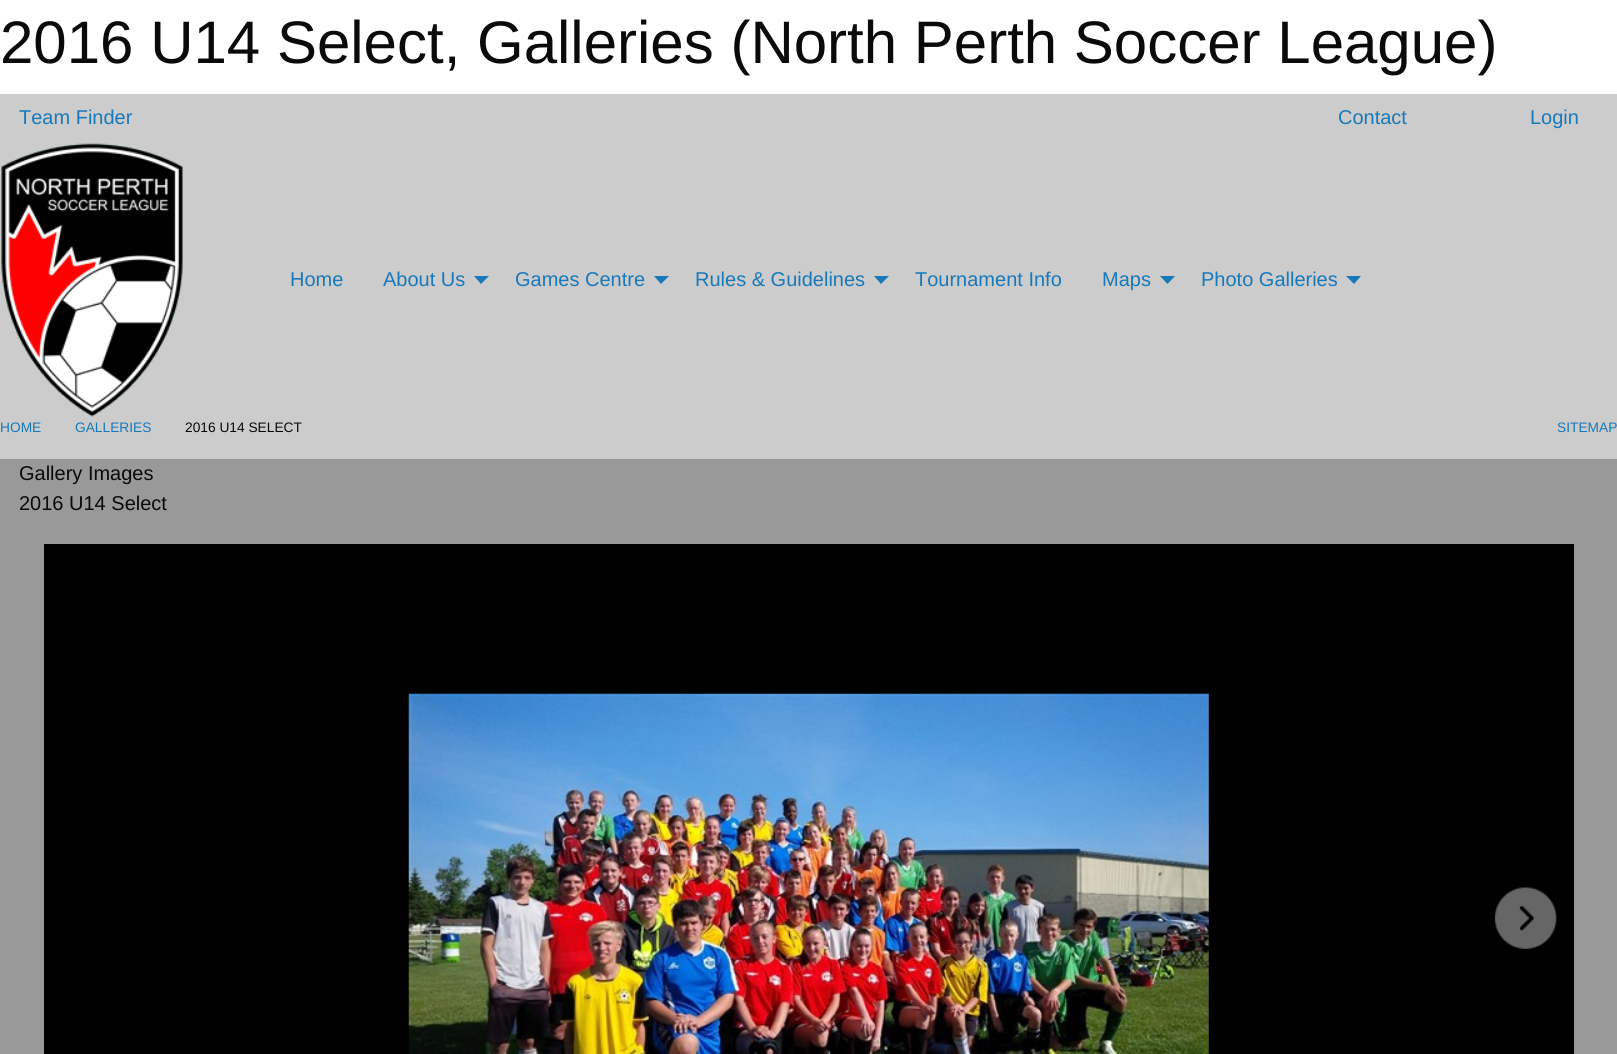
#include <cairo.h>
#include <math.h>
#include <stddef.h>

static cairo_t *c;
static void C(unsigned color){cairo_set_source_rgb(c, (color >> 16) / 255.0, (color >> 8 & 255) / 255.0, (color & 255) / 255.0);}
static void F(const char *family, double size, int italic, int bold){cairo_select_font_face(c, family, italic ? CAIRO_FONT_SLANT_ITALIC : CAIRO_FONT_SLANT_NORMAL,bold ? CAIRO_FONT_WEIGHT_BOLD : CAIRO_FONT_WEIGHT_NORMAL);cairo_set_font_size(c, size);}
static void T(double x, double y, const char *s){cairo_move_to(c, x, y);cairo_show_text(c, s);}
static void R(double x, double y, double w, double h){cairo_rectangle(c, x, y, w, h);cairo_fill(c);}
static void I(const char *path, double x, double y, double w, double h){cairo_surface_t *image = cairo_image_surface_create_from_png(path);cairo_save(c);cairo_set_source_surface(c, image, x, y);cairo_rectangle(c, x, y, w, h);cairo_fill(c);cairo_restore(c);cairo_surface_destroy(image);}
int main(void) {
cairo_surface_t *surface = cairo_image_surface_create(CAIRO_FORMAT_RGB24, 1617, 1054);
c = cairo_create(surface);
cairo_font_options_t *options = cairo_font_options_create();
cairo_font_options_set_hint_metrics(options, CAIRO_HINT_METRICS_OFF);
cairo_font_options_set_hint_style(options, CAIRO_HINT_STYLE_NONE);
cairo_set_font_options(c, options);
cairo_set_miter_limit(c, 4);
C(0xffffff);
cairo_paint(c);
F("Liberation Sans",60,0,0);
C(0x0a0a0a);
T(0,63,"2016 U14 Select, Galleries (North Perth Soccer League)");
C(0xcccccc);
R(0,94,1617,365);
F("Liberation Sans",20,0,0);
C(0x1779ba);
T(19,124,"Team Finder");
T(1338,124,"Contact");
T(1530,124,"Login");
I("1.png",1,143,182,274);
T(290,286,"Home");
T(383,286,"About Us");
cairo_new_path(c);
cairo_move_to(c,474,276);
cairo_line_to(c,489,276);
cairo_line_to(c,481,284);
cairo_close_path(c);
cairo_fill(c);
T(515,286,"Games Centre");
cairo_new_path(c);
cairo_move_to(c,654,276);
cairo_line_to(c,669,276);
cairo_line_to(c,661,284);
cairo_close_path(c);
cairo_fill(c);
T(695,286,"Rules & Guidelines");
cairo_new_path(c);
cairo_move_to(c,874,276);
cairo_line_to(c,889,276);
cairo_line_to(c,881,284);
cairo_close_path(c);
cairo_fill(c);
T(915,286,"Tournament Info");
T(1102,286,"Maps");
cairo_new_path(c);
cairo_move_to(c,1160,276);
cairo_line_to(c,1175,276);
cairo_line_to(c,1167.5,284);
cairo_close_path(c);
cairo_fill(c);
T(1201,286,"Photo Galleries");
cairo_new_path(c);
cairo_move_to(c,1346,276);
cairo_line_to(c,1361,276);
cairo_line_to(c,1354,284);
cairo_close_path(c);
cairo_fill(c);
F("Liberation Sans",13.75,0,0);
T(0,432,"HOME");
T(75,432,"GALLERIES");
C(0x0a0a0a);
T(185,432,"2016 U14 SELECT");
C(0x1779ba);
T(1557,432,"SITEMAP");
C(0x999999);
R(0,459,1617,595);
F("Liberation Sans",20,0,0);
C(0x0a0a0a);
T(19,480,"Gallery Images");
T(19,510,"2016 U14 Select");
C(0x000000);
R(44,544,1530,510);
I("2.png",408,693,801,361);
I("3.png",1494,887,63,62);
cairo_surface_write_to_png(surface, "o.png");
cairo_font_options_destroy(options);
cairo_destroy(c);
cairo_surface_destroy(surface);
return 0;
}
